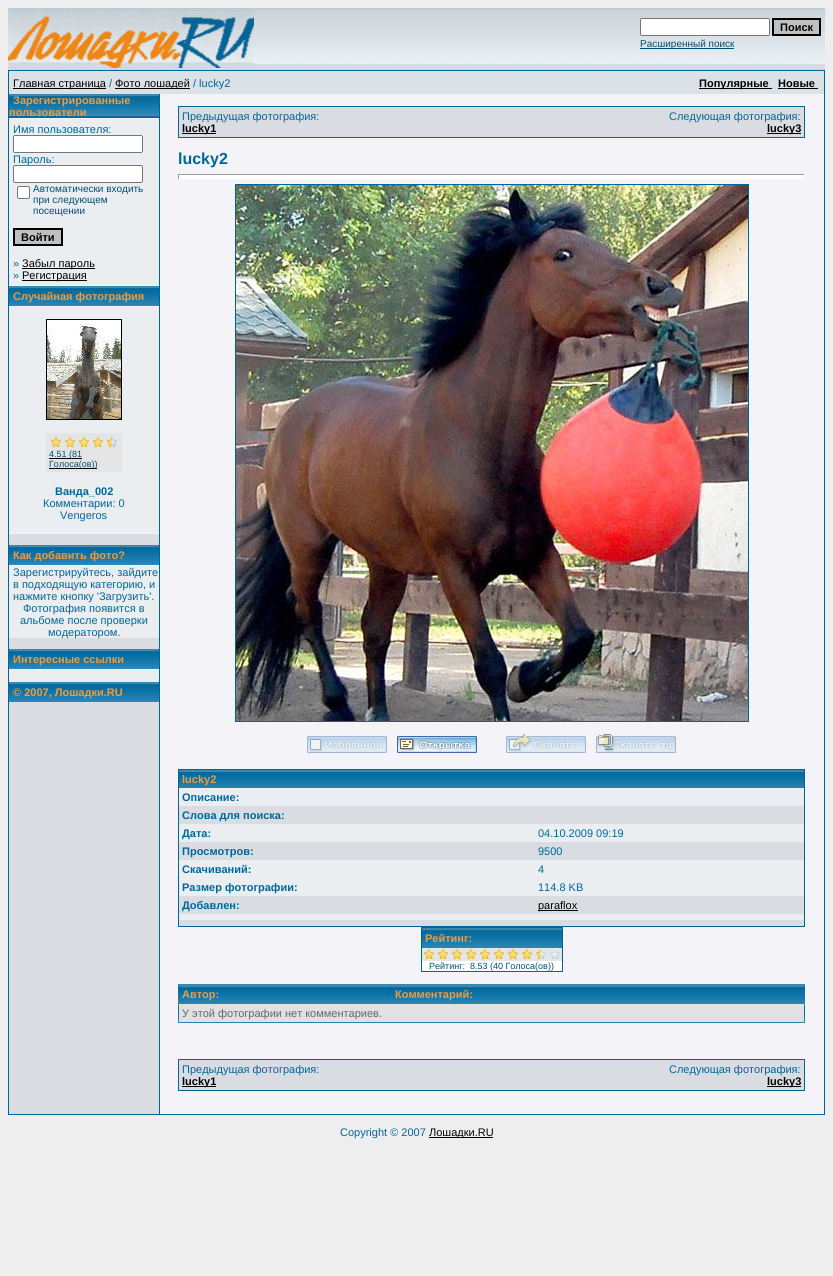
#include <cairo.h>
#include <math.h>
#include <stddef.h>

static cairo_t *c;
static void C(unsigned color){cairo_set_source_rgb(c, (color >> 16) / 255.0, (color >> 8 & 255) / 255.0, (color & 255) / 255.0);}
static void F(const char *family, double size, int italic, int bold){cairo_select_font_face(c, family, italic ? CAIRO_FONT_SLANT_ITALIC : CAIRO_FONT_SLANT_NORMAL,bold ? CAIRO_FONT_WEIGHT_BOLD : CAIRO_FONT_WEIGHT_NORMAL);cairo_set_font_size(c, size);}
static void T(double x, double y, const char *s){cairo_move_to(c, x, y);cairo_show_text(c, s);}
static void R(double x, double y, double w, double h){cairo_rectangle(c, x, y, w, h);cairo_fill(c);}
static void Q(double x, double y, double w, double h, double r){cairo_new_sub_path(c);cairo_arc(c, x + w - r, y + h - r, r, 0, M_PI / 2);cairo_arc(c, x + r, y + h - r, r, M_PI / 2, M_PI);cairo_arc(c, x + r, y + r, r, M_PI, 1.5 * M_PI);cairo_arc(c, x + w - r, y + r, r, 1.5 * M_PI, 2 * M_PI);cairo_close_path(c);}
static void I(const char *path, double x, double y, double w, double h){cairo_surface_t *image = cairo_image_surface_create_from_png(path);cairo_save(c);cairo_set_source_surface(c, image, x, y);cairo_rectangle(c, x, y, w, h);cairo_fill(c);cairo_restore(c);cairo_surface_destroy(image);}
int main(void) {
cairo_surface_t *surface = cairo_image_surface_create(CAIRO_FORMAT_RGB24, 833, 1276);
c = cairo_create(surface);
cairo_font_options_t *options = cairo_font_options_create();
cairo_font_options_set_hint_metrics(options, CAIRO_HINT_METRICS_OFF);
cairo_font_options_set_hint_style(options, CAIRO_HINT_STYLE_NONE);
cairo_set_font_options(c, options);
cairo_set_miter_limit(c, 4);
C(0xeeeeee);
cairo_paint(c);
I("1.png",8,8,817,62);
I("2.png",8,10,246,58);
C(0xffffff);
Q(640.5,18.5,129,17,1.5);
cairo_fill_preserve(c);
C(0x767676);
cairo_set_line_width(c,1);
cairo_stroke(c);
C(0xc0c0c0);
cairo_rectangle(c,773,19,47,16);
cairo_fill_preserve(c);
C(0x000000);
cairo_set_line_width(c,2);
cairo_stroke(c);
F("Liberation Sans",11,0,1);
T(780,31,"Поиск");
C(0x004d71);
R(640,48,94,1);
F("Liberation Sans",10,0,0);
T(640,47,"Расширенный поиск");
C(0x006699);
R(8,70,817,1045);
C(0xf3f3f8);
R(160,94,664,1020);
C(0xdbe2e7);
R(9,71,815,23);
C(0x000000);
R(13,88,93,1);
F("Liberation Sans",11,0,0);
T(13,87,"Главная страница");
C(0x006699);
T(109,87,"/");
C(0x000000);
R(115,88,75,1);
T(115,87,"Фото лошадей");
C(0x006699);
T(193,87,"/ lucky2");
C(0x000000);
R(699,88,73,1);
F("Liberation Sans",11,0,1);
T(699,87,"Популярные");
T(778,87,"Новые");
R(778,88,40,1);
C(0xd9dde1);
R(9,534,150,580);
I("3.png",9,94,150,24);
C(0xf49b39);
T(13,104,"Зарегистрированные");
T(9,116,"пользователи");
C(0xf3f3f8);
R(9,118,150,1);
C(0xebeef1);
R(9,119,150,166);
F("Liberation Sans",11,0,0);
C(0x006699);
T(13,133,"Имя пользователя:");
C(0xffffff);
Q(13.5,135.5,129,17,1.5);
cairo_fill_preserve(c);
C(0x767676);
cairo_set_line_width(c,1);
cairo_stroke(c);
C(0x006699);
T(13,163,"Пароль:");
C(0xffffff);
Q(13.5,165.5,129,17,1.5);
cairo_fill_preserve(c);
C(0x767676);
cairo_stroke(c);
C(0xffffff);
Q(17.5,186.5,12,12,1.5);
cairo_fill_preserve(c);
C(0x767676);
cairo_stroke(c);
F("Liberation Sans",10,0,0);
C(0x004d71);
T(33,192,"Автоматически входить");
T(33,203,"при следующем");
T(33,214,"посещении");
C(0xc0c0c0);
cairo_rectangle(c,14,229,48,16);
cairo_fill_preserve(c);
C(0x000000);
cairo_set_line_width(c,2);
cairo_stroke(c);
F("Liberation Sans",11,0,1);
T(21,241,"Войти");
F("Liberation Sans",11,0,0);
C(0x006699);
T(13,267,"»");
C(0x000000);
R(22,268,73,1);
T(22,267,"Забыл пароль");
C(0x006699);
T(13,279,"»");
C(0x000000);
R(22,280,65,1);
T(22,279,"Регистрация");
C(0xf3f3f8);
R(9,285,150,1);
I("4.png",9,286,150,20);
F("Liberation Sans",11,0,1);
C(0xf49b39);
T(13,300,"Случайная фотография");
C(0xf3f3f8);
R(9,306,150,1);
C(0xebeef1);
R(9,307,150,226);
cairo_rectangle(c,46.5,319.5,75,100);
C(0x000000);
cairo_set_line_width(c,1);
cairo_stroke(c);
I("5.png",47,320,74,99);
C(0xe5e5e5);
R(46,433,76,39);
I("6.png",112,437,5,11);
I("7.png",51,437,61,11);
C(0x000000);
R(49,458,33,1);
F("Liberation Sans",9,0,0);
C(0x004d71);
T(49,457,"4.51 (81");
C(0x000000);
R(49,468,48,1);
C(0x004d71);
T(49,467,"Голоса(ов))");
F("Liberation Sans",11,0,1);
C(0x006699);
T(55,495,"Ванда_002");
F("Liberation Sans",11,0,0);
T(43,507,"Комментарии: 0");
T(60,519,"Vengeros");
C(0xf3f3f8);
R(9,533,150,1);
I("4.png",9,545,150,20);
F("Liberation Sans",11,0,1);
C(0xf49b39);
T(13,559,"Как добавить фото?");
C(0xf3f3f8);
R(9,565,150,1);
C(0xebeef1);
R(9,566,150,72);
F("Liberation Sans",11,0,0);
C(0x006699);
T(13,576,"Зарегистрируйтесь, зайдите");
T(13,588,"в подходящую категорию, и");
T(13,600,"нажмите кнопку 'Загрузить'.");
T(23,612,"Фотография появится в");
T(20,624,"альбоме после проверки");
T(48,636,"модератором.");
I("4.png",9,649,150,20);
F("Liberation Sans",11,0,1);
C(0xf49b39);
T(13,663,"Интересные ссылки");
C(0xf3f3f8);
R(9,669,150,1);
C(0xebeef1);
R(9,670,150,12);
I("4.png",9,682,150,20);
C(0xf49b39);
T(13,696,"© 2007, Лошадки.RU");
C(0x006699);
R(178,106,627,32);
C(0xd9dde1);
R(179,107,625,30);
F("Liberation Sans",11,0,0);
C(0x006699);
T(182,120,"Предыдущая фотография:");
C(0x000000);
R(182,133,34,1);
F("Liberation Sans",11,0,1);
T(182,132,"lucky1");
F("Liberation Sans",11,0,0);
C(0x006699);
T(669,120,"Следующая фотография:");
C(0x000000);
R(767,133,34,1);
F("Liberation Sans",11,0,1);
T(767,132,"lucky3");
F("Liberation Sans",16,0,1);
C(0x006699);
T(178,164,"lucky2");
C(0xffffff);
R(178,175,627,4);
C(0x9f9f9f);
R(178,174,627,1);
C(0xeeeeee);
R(804,174,1,5);
C(0x9f9f9f);
R(178,174,1,5);
cairo_rectangle(c,235.5,184.5,513,537);
C(0x006699);
cairo_stroke(c);
I("8.png",236,185,512,536);
I("9.png",307,736,80,17);
I("10.png",397,736,80,17);
I("11.png",506,734,80,19);
I("12.png",596,734,80,19);
R(178,769,627,158);
I("13.png",179,770,625,18);
F("Liberation Sans",11,0,1);
C(0xf49b39);
T(182,783,"lucky2");
C(0xebeef1);
R(179,788,625,18);
C(0x006699);
T(182,801,"Описание:");
C(0xd9dde1);
R(179,806,625,18);
C(0x006699);
T(182,819,"Слова для поиска:");
C(0xebeef1);
R(179,824,625,18);
C(0x006699);
T(182,837,"Дата:");
F("Liberation Sans",11,0,0);
T(538,837,"04.10.2009 09:19");
C(0xd9dde1);
R(179,842,625,18);
F("Liberation Sans",11,0,1);
C(0x006699);
T(182,855,"Просмотров:");
F("Liberation Sans",11,0,0);
T(538,855,"9500");
C(0xebeef1);
R(179,860,625,18);
F("Liberation Sans",11,0,1);
C(0x006699);
T(182,873,"Скачиваний:");
F("Liberation Sans",11,0,0);
T(538,873,"4");
C(0xebeef1);
R(179,878,625,18);
F("Liberation Sans",11,0,1);
C(0x006699);
T(182,891,"Размер фотографии:");
F("Liberation Sans",11,0,0);
T(538,891,"114.8 KB");
C(0xd9dde1);
R(179,896,625,18);
F("Liberation Sans",11,0,1);
C(0x006699);
T(182,909,"Добавлен:");
C(0x000000);
R(538,910,40,1);
F("Liberation Sans",11,0,0);
T(538,909,"paraflox");
C(0xebeef1);
R(179,914,625,6);
C(0xd9dde1);
R(179,920,625,6);
C(0x006699);
R(421,927,142,45);
I("14.png",422,928,140,20);
F("Liberation Sans",11,0,1);
C(0xf49b39);
T(425,942,"Рейтинг:");
C(0xffffff);
R(422,961,140,10);
I("15.png",422,948,140,13);
I("16.png",424,948,117,13);
F("Liberation Sans",9,0,0);
C(0x004d71);
T(429,969,"Рейтинг:  8.53 (40 Голоса(ов))");
I("17.png",178,984,627,39);
I("18.png",179,985,212,18);
F("Liberation Sans",11,0,1);
C(0xf49b39);
T(182,998,"Автор:");
I("19.png",392,985,412,18);
T(395,998,"Комментарий:");
C(0xe1e1e1);
R(179,1004,625,18);
F("Liberation Sans",11,0,0);
C(0x666666);
T(182,1017,"У этой фотографии нет комментариев.");
C(0x006699);
R(178,1059,627,32);
C(0xd9dde1);
R(179,1060,625,30);
C(0x006699);
T(182,1073,"Предыдущая фотография:");
C(0x000000);
R(182,1086,34,1);
F("Liberation Sans",11,0,1);
T(182,1085,"lucky1");
F("Liberation Sans",11,0,0);
C(0x006699);
T(669,1073,"Следующая фотография:");
C(0x000000);
R(767,1086,34,1);
F("Liberation Sans",11,0,1);
T(767,1085,"lucky3");
F("Liberation Sans",11,0,0);
C(0x006699);
T(340,1136,"Copyright © 2007");
C(0x000000);
R(429,1137,64,1);
T(429,1136,"Лошадки.RU");
cairo_surface_write_to_png(surface, "o.png");
cairo_font_options_destroy(options);
cairo_destroy(c);
cairo_surface_destroy(surface);
return 0;
}
